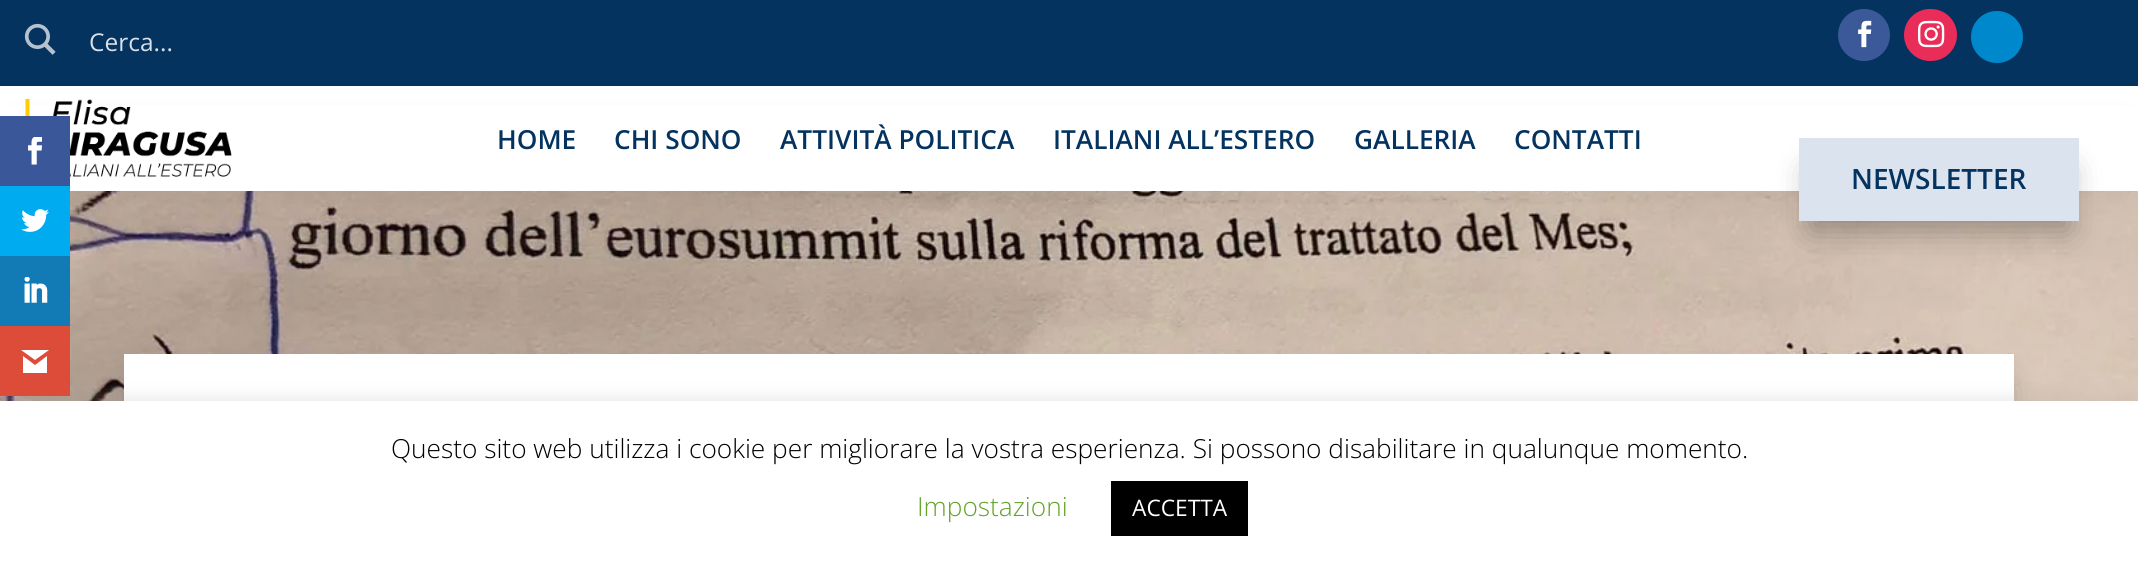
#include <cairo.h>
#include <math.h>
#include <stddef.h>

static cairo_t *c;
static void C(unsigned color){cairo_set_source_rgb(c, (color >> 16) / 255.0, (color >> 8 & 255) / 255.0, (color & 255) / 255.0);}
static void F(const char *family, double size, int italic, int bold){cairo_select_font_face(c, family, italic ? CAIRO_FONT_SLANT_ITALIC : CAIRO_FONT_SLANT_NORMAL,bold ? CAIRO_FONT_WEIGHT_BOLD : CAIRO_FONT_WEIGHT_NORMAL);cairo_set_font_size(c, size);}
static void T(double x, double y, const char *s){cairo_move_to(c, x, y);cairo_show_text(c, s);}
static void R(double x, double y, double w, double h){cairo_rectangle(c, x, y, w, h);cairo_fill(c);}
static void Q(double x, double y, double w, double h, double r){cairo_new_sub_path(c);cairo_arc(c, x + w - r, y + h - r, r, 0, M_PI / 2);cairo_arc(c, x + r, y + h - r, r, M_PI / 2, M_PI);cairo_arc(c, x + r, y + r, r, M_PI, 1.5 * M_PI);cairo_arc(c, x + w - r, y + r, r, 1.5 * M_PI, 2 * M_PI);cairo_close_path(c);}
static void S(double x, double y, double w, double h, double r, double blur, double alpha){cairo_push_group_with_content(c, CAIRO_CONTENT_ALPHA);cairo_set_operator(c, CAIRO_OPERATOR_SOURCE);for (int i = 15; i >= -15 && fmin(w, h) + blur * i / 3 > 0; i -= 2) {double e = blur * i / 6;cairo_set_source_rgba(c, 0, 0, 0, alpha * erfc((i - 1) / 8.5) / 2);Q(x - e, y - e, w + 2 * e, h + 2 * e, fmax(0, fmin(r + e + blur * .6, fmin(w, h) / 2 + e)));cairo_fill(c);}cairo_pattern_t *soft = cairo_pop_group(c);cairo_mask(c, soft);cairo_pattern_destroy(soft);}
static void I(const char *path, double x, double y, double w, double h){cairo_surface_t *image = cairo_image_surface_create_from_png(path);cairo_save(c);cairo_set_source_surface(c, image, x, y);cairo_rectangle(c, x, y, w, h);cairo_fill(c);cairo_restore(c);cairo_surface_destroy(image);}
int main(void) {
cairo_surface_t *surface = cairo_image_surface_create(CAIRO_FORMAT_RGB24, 2138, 564);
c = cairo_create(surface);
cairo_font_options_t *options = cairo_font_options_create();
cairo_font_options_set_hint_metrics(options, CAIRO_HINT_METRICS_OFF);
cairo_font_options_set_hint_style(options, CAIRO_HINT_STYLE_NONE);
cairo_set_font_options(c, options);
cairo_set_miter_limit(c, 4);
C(0xffffff);
cairo_paint(c);
C(0x053360);
R(0,0,2138,86);
I("8.png",0,191,2138,210);
C(0x000000);
S(11,117,2117,84,0,16,.04);
C(0xffffff);
R(0,106,2138,85);
I("7.png",25,98,207,79);
C(0x3a579a);
R(0,116,70,70);
I("1.png",28,137,15,28);
C(0x00abf0);
R(0,186,70,70);
I("2.png",21,209,28,23);
C(0x127bb6);
R(0,256,70,70);
I("3.png",24,277,24,26);
C(0x000000);
S(135,385,1869,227,0,16,.3);
C(0xffffff);
R(124,354,1890,47);
C(0xacabab);
S(0,399,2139,165,0,9,.3);
C(0xdd4b39);
R(0,326,70,70);
C(0xffffff);
cairo_new_path(c);
cairo_move_to(c,49,350);
cairo_line_to(c,21,350);
cairo_line_to(c,35,360);
cairo_close_path(c);
cairo_move_to(c,35,365);
cairo_line_to(c,23,356);
cairo_line_to(c,23,373);
cairo_line_to(c,47,373);
cairo_line_to(c,47,356);
cairo_close_path(c);
cairo_fill(c);
I("4.png",24,23,32,32);
F("Open Sans",24.5,0,0);
C(0xdae0e7);
T(89,51,"Cerca...");
C(0x3b5998);
cairo_new_path(c);
cairo_arc(c,1864,35,26,0,2 * M_PI);
cairo_fill(c);
I("5.png",1858,20,14,28);
C(0xea2c59);
Q(1904,9,53,52,26);
cairo_fill(c);
I("6.png",1918,20,27,28);
C(0x0088cc);
cairo_arc(c,1997,37,26,0,2 * M_PI);
cairo_fill(c);
F("Open Sans SemiBold",26.25,0,0);
C(0x053360);
T(497,149,"HOME");
T(614,149,"CHI SONO");
T(780,149,"ATTIVITÀ POLITICA");
T(1053,149,"ITALIANI ALL’ESTERO");
T(1354,149,"GALLERIA");
T(1514,149,"CONTATTI");
C(0x000000);
S(1810,170,259,61,0,16,.3);
C(0xdbe4ee);
R(1799,138,280,83);
F("Open Sans SemiBold",28,0,0);
C(0x053360);
T(1851,189,"NEWSLETTER");
C(0xffffff);
R(0,401,2138,163);
F("Open Sans Light",26.25,0,0);
C(0x000000);
T(391,458,"Questo sito web utilizza i cookie per migliorare la vostra esperienza. Si possono disabilitare in qualunque momento.");
C(0x62a329);
T(917,516,"Impostazioni");
C(0x000000);
R(1111,481,137,55);
F("Open Sans",22.75,0,0);
C(0xffffff);
T(1132,516,"ACCETTA");
cairo_surface_write_to_png(surface, "o.png");
cairo_font_options_destroy(options);
cairo_destroy(c);
cairo_surface_destroy(surface);
return 0;
}
